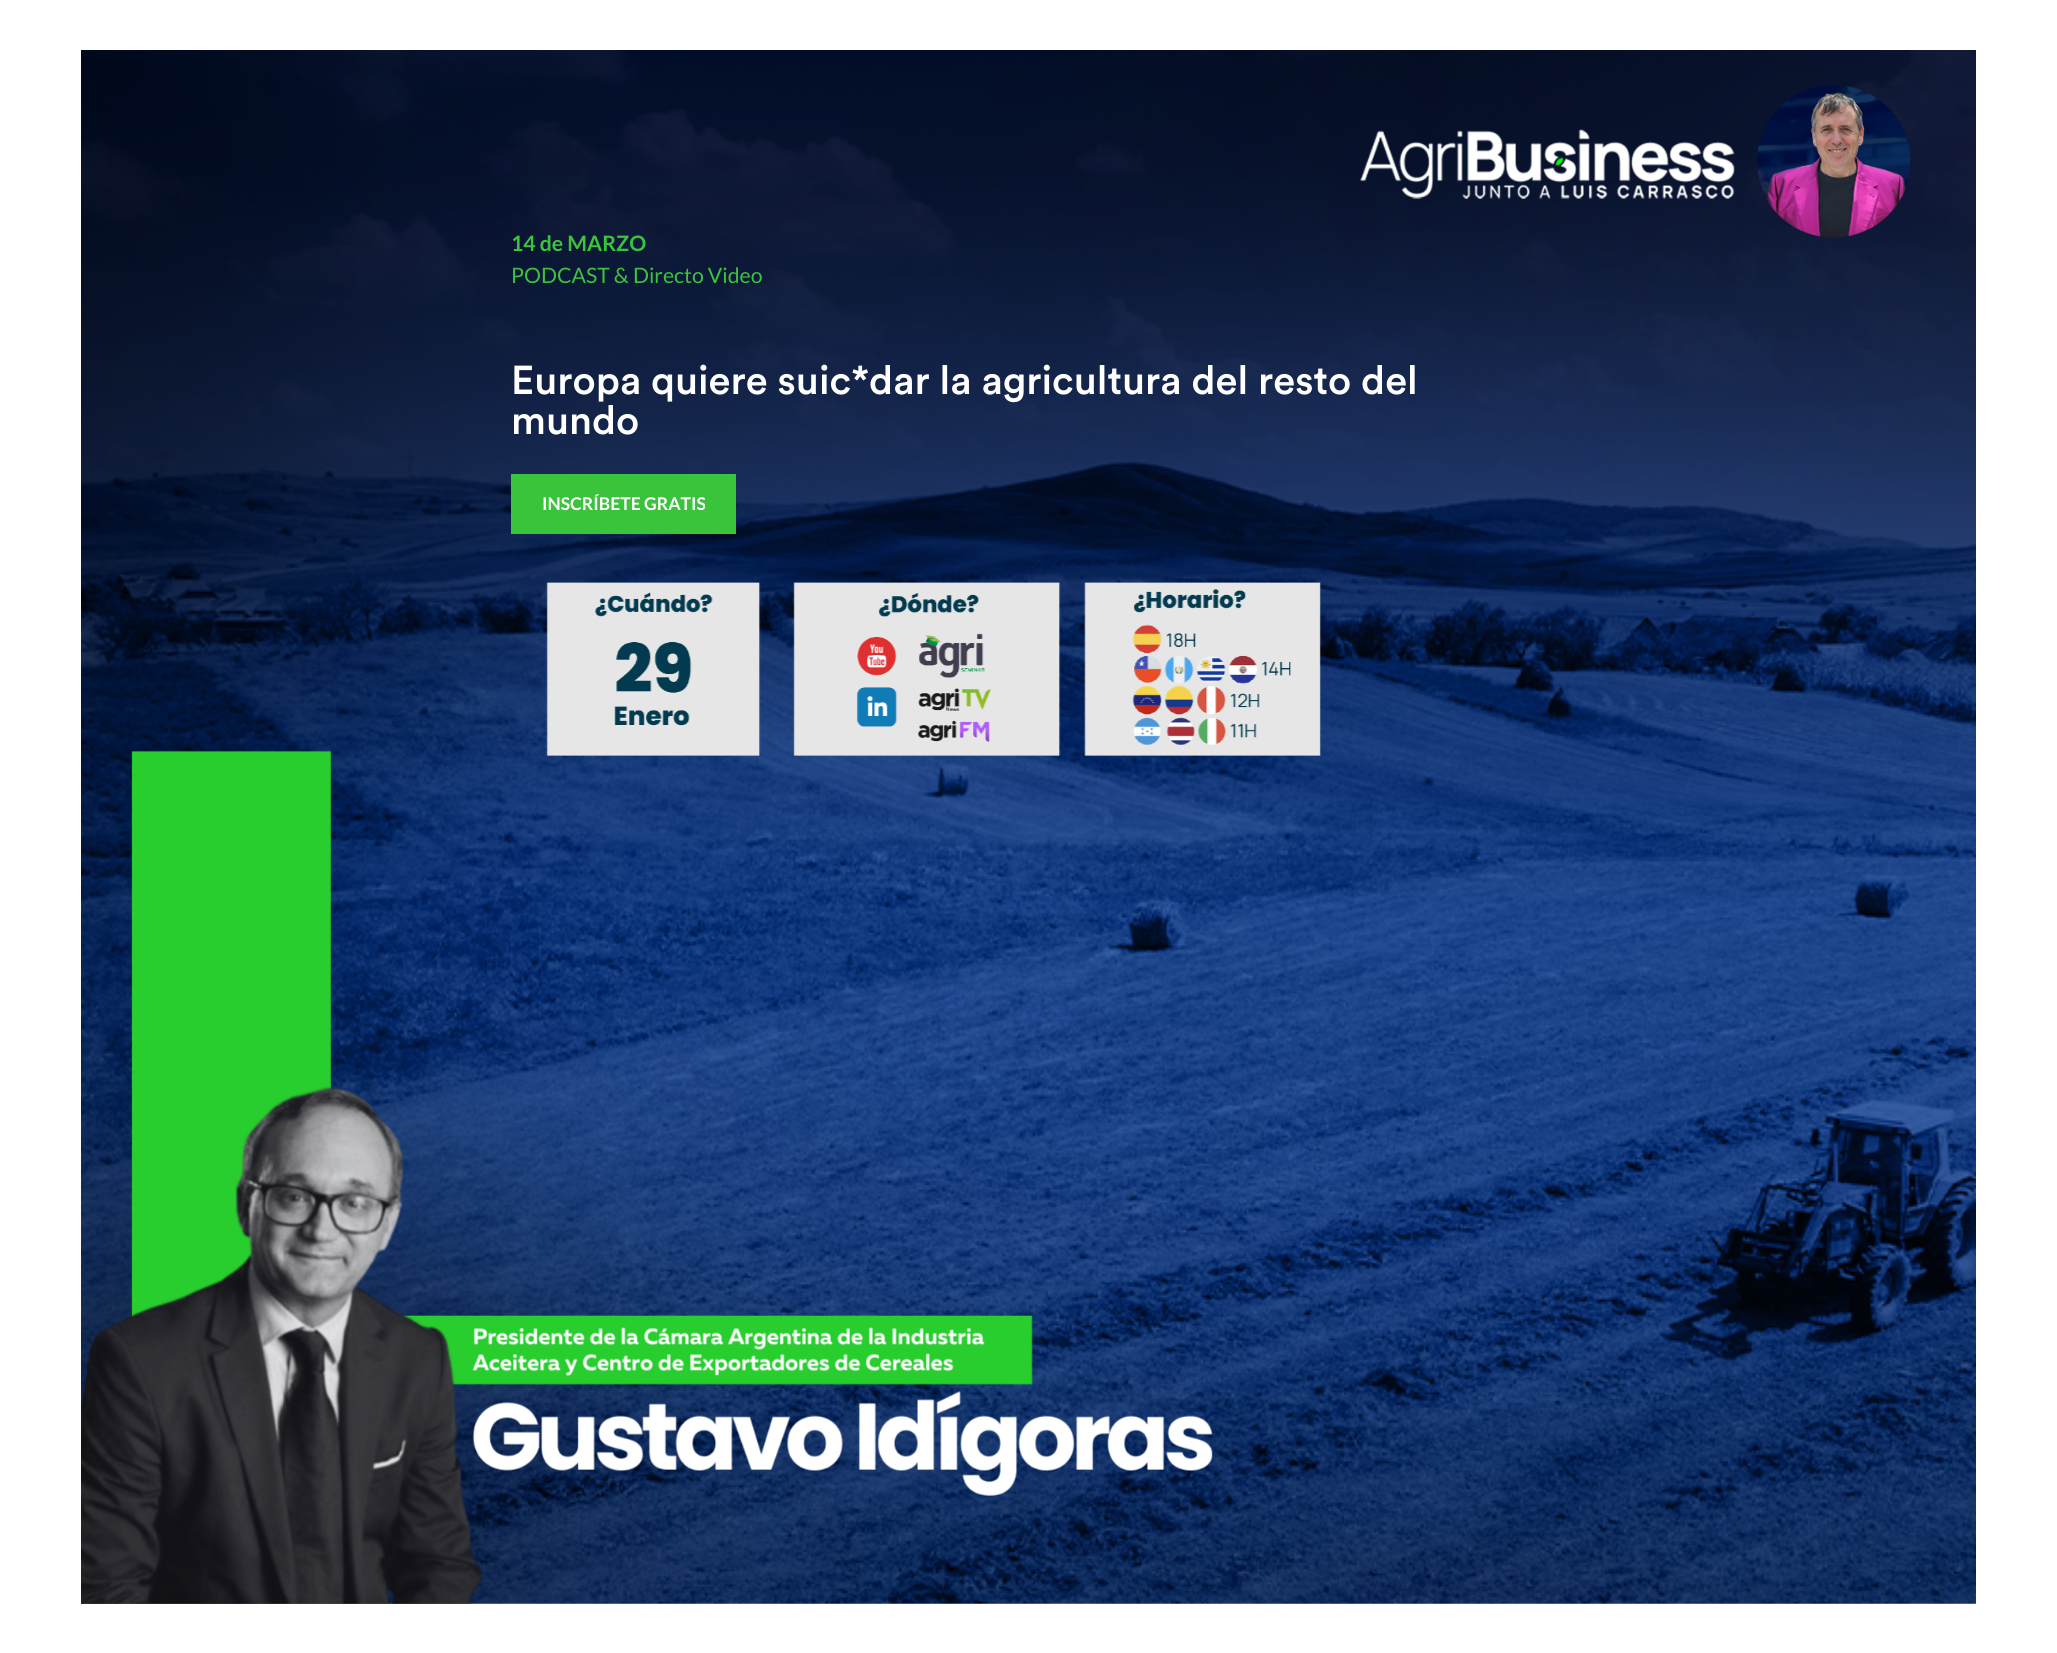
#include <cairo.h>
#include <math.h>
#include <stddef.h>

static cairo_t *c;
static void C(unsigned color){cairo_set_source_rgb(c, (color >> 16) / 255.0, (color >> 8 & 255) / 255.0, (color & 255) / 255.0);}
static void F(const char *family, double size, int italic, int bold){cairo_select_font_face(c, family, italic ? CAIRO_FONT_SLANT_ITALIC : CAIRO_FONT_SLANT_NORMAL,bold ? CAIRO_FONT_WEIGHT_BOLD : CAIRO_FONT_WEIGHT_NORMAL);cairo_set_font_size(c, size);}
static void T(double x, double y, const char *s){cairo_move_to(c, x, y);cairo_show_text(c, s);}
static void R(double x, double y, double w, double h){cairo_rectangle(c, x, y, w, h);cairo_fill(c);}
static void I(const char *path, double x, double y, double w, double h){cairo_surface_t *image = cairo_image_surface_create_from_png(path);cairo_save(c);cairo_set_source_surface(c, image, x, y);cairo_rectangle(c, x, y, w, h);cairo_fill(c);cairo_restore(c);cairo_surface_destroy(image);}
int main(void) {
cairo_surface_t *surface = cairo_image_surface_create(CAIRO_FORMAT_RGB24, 2057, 1653);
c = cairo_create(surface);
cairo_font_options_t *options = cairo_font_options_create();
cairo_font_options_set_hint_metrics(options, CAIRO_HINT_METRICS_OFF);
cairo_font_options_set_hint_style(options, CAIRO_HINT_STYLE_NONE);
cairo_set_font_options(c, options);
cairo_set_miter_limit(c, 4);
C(0xffffff);
cairo_paint(c);
I("2.png",81,50,1895,1554);
I("1.png",1360,85,551,153);
F("Lato",21.25,0,1);
C(0x39c43c);
T(511,251,"14 de MARZO");
F("Lato",21.25,0,0);
T(511,283,"PODCAST & Directo Video");
F("Circular Medium",40,0,0);
C(0xffffff);
T(511,394,"Europa quiere suic*dar la agricultura del resto del");
T(511,434,"mundo");
C(0x39c43c);
R(511,474,225,60);
F("Lato",17.5,0,1);
C(0xffffff);
T(542,510,"INSCRÍBETE GRATIS");
I("4.png",81,750,1132,854);
I("3.png",546,582,775,174);
cairo_surface_write_to_png(surface, "o.png");
cairo_font_options_destroy(options);
cairo_destroy(c);
cairo_surface_destroy(surface);
return 0;
}
